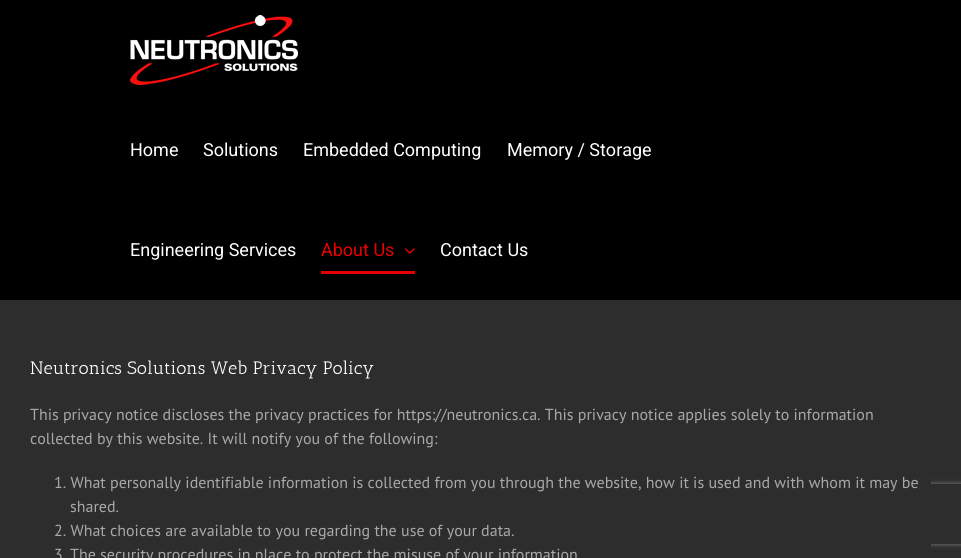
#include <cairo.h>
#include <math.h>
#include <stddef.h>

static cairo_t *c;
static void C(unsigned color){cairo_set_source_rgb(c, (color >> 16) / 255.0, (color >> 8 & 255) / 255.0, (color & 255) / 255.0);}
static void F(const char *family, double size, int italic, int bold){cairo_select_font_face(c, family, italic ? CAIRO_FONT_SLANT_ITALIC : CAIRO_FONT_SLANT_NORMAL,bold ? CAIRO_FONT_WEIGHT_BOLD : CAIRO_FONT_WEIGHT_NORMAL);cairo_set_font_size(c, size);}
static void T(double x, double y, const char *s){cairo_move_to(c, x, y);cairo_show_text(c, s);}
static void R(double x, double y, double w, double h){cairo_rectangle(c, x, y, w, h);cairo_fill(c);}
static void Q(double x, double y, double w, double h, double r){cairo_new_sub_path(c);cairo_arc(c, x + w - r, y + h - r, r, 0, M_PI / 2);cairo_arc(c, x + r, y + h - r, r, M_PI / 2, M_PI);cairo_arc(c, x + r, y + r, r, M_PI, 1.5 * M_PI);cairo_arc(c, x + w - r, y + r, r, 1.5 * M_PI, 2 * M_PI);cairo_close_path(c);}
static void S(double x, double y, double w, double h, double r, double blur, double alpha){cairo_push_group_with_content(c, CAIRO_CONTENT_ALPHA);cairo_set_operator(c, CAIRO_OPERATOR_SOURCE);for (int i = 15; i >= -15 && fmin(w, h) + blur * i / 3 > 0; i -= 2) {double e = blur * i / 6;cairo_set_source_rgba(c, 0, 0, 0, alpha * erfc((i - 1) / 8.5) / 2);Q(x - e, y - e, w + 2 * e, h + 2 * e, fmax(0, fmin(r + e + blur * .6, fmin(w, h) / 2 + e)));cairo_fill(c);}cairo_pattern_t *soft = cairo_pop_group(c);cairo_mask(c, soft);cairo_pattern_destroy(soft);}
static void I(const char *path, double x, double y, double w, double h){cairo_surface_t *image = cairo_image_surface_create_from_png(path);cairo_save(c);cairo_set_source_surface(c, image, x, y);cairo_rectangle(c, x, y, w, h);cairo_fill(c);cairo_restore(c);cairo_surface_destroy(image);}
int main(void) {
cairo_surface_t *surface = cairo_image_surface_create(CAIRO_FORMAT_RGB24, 961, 558);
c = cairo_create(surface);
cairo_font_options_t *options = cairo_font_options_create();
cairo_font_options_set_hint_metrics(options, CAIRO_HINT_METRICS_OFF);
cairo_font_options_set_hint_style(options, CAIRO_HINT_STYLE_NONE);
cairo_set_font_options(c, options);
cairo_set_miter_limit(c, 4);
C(0x2d2d2d);
cairo_paint(c);
C(0x000000);
R(0,0,961,300);
I("1.png",130,15,168,70);
F("Roboto",18,0,0);
C(0xffffff);
T(130,156,"Home");
T(203,156,"Solutions");
T(303,156,"Embedded Computing");
T(507,156,"Memory / Storage");
T(130,256,"Engineering Services");
C(0xe80000);
T(321,256,"About Us");
I("2.png",404,248,11,6);
R(321,271,94,3);
C(0xffffff);
T(440,256,"Contact Us");
cairo_save(c);
cairo_set_fill_rule(c,CAIRO_FILL_RULE_EVEN_ODD);
cairo_new_path(c);
cairo_move_to(c,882,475);
cairo_line_to(c,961,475);
cairo_line_to(c,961,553);
cairo_line_to(c,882,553);
cairo_close_path(c);
cairo_move_to(c,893,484);
cairo_line_to(c,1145,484);
cairo_curve_to(c,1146,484,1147,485,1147,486);
cairo_line_to(c,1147,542);
cairo_curve_to(c,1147,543,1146,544,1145,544);
cairo_line_to(c,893,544);
cairo_curve_to(c,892,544,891,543,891,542);
cairo_line_to(c,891,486);
cairo_curve_to(c,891,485,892,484,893,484);
cairo_close_path(c);
cairo_clip(c);
C(0x808080);
S(891,484,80,60,2,2.5,1);
cairo_restore(c);
C(0x2d2d2d);
R(886,479,45,70);
F("Antic Slab",18,0,0);
C(0xffffff);
T(30,374,"Neutronics Solutions Web Privacy Policy");
F("PT Sans",16,0,0);
C(0xaaa9a9);
T(30,420,"This privacy notice discloses the privacy practices for https://neutronics.ca. This privacy notice applies solely to information");
T(30,444,"collected by this website. It will notify you of the following:");
T(54,488,"1. What personally identifiable information is collected from you through the website, how it is used and with whom it may be");
T(70,512,"shared.");
T(54,536,"2. What choices are available to you regarding the use of your data.");
T(54,560,"3");
T(70,560,"The security procedures in place to protect the misuse of your information");
cairo_surface_write_to_png(surface, "o.png");
cairo_font_options_destroy(options);
cairo_destroy(c);
cairo_surface_destroy(surface);
return 0;
}
